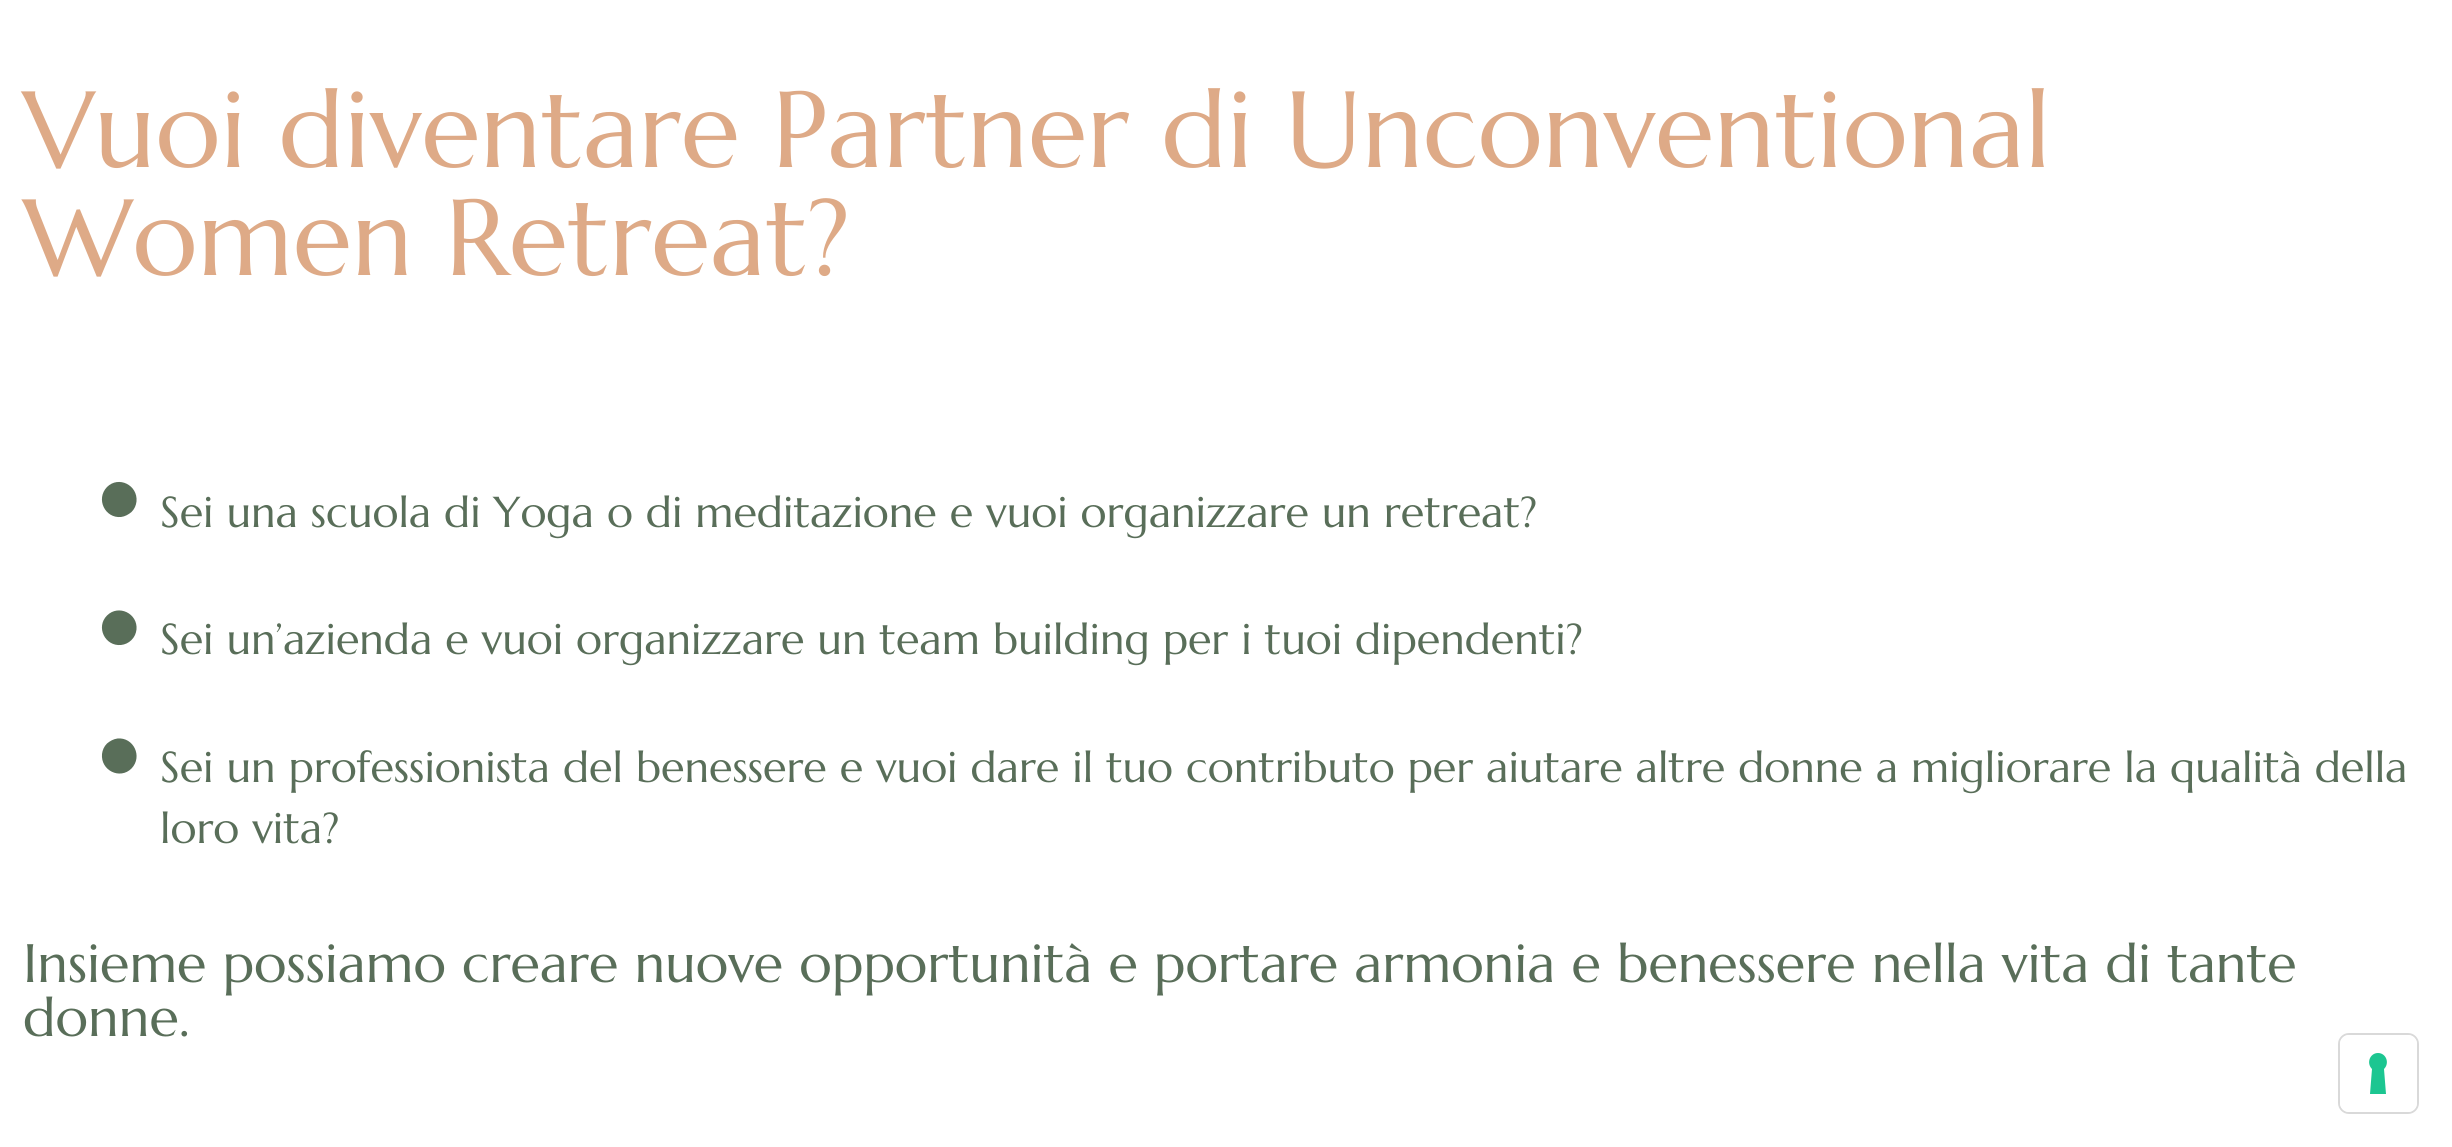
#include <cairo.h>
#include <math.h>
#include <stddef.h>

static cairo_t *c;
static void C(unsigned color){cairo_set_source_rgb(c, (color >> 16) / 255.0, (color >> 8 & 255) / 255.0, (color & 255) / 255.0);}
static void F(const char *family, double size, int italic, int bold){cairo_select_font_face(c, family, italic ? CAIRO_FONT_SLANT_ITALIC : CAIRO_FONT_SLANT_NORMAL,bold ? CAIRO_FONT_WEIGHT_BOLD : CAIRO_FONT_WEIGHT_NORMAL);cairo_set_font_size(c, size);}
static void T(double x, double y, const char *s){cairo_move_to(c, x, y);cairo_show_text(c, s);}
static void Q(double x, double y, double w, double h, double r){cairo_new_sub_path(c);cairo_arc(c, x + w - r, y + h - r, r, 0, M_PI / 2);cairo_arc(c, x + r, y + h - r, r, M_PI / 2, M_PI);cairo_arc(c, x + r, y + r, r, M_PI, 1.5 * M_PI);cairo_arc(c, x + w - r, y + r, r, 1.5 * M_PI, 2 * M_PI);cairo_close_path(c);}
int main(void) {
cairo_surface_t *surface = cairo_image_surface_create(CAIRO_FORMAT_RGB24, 2452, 1147);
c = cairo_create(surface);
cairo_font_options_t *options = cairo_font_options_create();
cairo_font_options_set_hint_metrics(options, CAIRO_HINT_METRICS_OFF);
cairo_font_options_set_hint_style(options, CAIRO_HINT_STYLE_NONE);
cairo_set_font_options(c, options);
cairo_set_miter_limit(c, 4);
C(0xffffff);
cairo_paint(c);
F("Marcellus",108,0,0);
C(0xdeaa87);
T(23,167,"Vuoi diventare Partner di Unconventional");
T(23,275,"Women Retreat?");
C(0x596e59);
cairo_new_path(c);
cairo_move_to(c,107,487);
cairo_curve_to(c,118.5,475.5,138,485,136.5,501.5);
cairo_curve_to(c,136,505.5,134.5,509,131.5,512);
cairo_curve_to(c,128.5,514.5,125,516.5,121,517);
cairo_curve_to(c,105,518.5,95.5,499,107,487);
cairo_close_path(c);
cairo_fill(c);
F("Marcellus",43.2,0,0);
T(160,527,"Sei una scuola di Yoga o di meditazione e vuoi organizzare un retreat?");
cairo_new_path(c);
cairo_move_to(c,107,615.5);
cairo_curve_to(c,118.5,604,138,613.5,136.5,629.5);
cairo_curve_to(c,136,633.5,134.5,637,131.5,640);
cairo_curve_to(c,128.5,643,125,644.5,121,645);
cairo_curve_to(c,105,646.5,95.5,627,107,615.5);
cairo_close_path(c);
cairo_fill(c);
T(160,654,"Sei un’azienda e vuoi organizzare un team building per i tuoi dipendenti?");
cairo_new_path(c);
cairo_move_to(c,107,743.5);
cairo_curve_to(c,110,741,113.5,739,117.5,738.5);
cairo_curve_to(c,133.5,737,143,756.5,131.5,768.5);
cairo_curve_to(c,120,780,100.5,770.5,102,754);
cairo_curve_to(c,102.5,750,104,746.5,107,743.5);
cairo_close_path(c);
cairo_fill(c);
T(160,782,"Sei un professionista del benessere e vuoi dare il tuo contributo per aiutare altre donne a migliorare la qualità della");
T(160,843,"loro vita?");
F("Marcellus",54,0,0);
T(23,982,"Insieme possiamo creare nuove opportunità e portare armonia e benessere nella vita di tante");
T(23,1036,"donne.");
Q(2339,1034,79,79,10);
C(0xd9d9d9);
cairo_stroke(c);
C(0xffffff);
Q(2340,1035,77,77,9);
cairo_fill(c);
C(0x1cc691);
cairo_set_fill_rule(c,CAIRO_FILL_RULE_EVEN_ODD);
cairo_new_path(c);
cairo_move_to(c,2378,1053);
cairo_curve_to(c,2386,1053,2390,1063,2384,1069);
cairo_line_to(c,2386,1094);
cairo_line_to(c,2370,1094);
cairo_line_to(c,2372,1069);
cairo_curve_to(c,2366,1063,2370,1053,2378,1053);
cairo_close_path(c);
cairo_fill(c);
cairo_surface_write_to_png(surface, "o.png");
cairo_font_options_destroy(options);
cairo_destroy(c);
cairo_surface_destroy(surface);
return 0;
}
